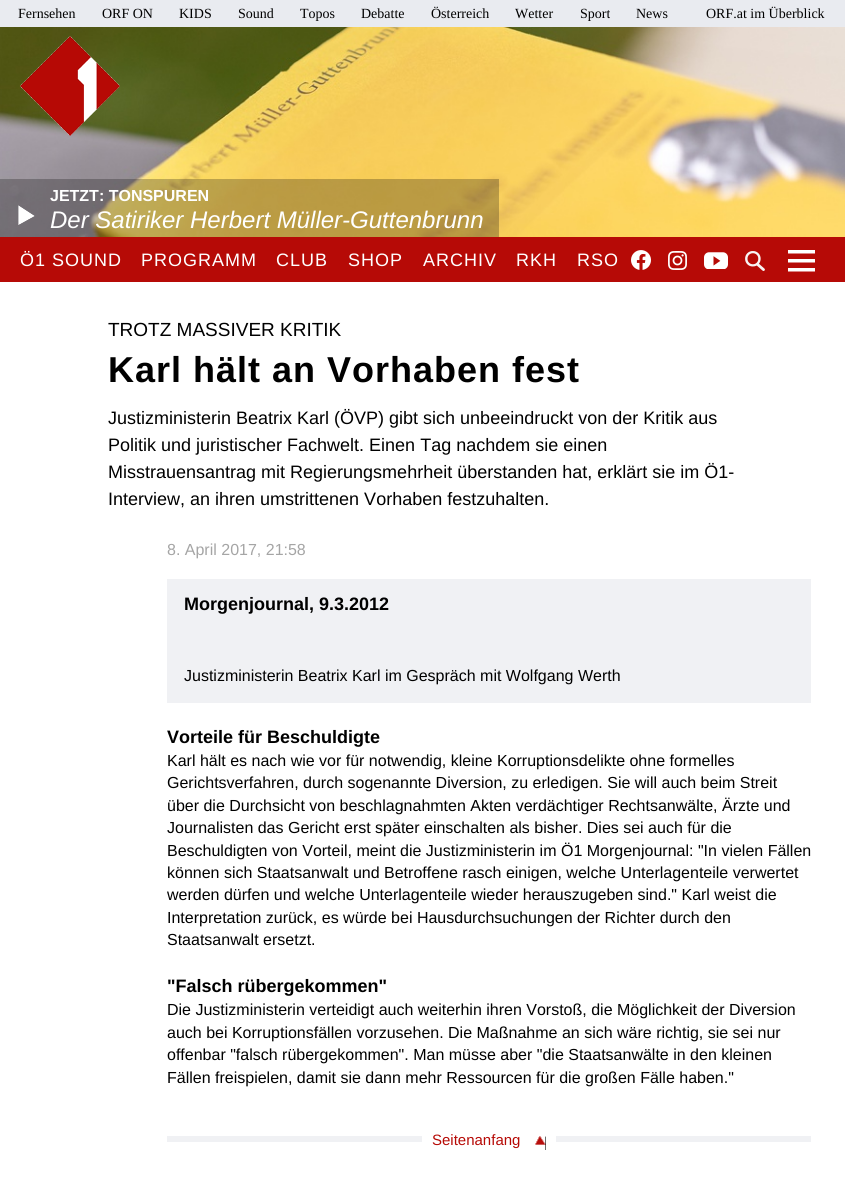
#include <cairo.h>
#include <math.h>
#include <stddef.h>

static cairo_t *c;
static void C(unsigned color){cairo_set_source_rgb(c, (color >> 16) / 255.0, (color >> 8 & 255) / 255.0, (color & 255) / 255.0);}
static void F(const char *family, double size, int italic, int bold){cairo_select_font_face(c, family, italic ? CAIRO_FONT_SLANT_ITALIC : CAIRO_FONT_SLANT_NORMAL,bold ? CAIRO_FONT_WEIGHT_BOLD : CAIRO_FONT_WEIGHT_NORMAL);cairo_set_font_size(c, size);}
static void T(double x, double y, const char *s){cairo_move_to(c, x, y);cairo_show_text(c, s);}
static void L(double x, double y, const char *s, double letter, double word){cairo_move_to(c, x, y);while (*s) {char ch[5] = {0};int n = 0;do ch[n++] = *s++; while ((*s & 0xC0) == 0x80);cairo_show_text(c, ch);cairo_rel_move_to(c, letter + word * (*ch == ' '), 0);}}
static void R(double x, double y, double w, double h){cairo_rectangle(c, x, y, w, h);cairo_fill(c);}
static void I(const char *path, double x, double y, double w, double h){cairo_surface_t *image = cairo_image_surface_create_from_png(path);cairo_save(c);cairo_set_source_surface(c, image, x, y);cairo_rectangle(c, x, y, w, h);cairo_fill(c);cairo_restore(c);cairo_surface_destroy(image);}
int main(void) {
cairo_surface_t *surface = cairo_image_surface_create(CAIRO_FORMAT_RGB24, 845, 1192);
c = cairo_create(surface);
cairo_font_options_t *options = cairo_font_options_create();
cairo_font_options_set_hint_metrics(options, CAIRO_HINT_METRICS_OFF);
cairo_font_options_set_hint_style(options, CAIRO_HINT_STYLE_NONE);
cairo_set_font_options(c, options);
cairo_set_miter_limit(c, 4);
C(0xffffff);
cairo_paint(c);
C(0xe9ebf0);
R(0,0,845,27);
F("Liberation Serif",14,0,0);
C(0x000000);
T(18,18,"Fernsehen");
T(102,18,"ORF ON");
T(179,18,"KIDS");
T(238,18,"Sound");
T(300,18,"Topos");
T(361,18,"Debatte");
T(431,18,"Österreich");
T(515,18,"Wetter");
T(580,18,"Sport");
T(636,18,"News");
T(706,18,"ORF.at im Überblick");
I("2.png",0,27,845,210);
I("1.png",20,36,100,100);
cairo_set_source_rgba(c,0,0,0,0.25);
R(0,179,499,58);
F("Liberation Sans",16,0,1);
C(0xffffff);
T(50,201,"JETZT: TONSPUREN");
I("3.png",18,205,17,20);
F("Liberation Sans",24,1,0);
T(50,228,"Der Satiriker Herbert Müller-Guttenbrunn");
C(0xb60a06);
R(0,237,845,45);
F("Liberation Sans",18,0,0);
C(0xffffff);
L(20,266,"Ö1 SOUND",1,0);
L(141,266,"PROGRAMM",1,0);
L(276,266,"CLUB",1,0);
L(348,266,"SHOP",1,0);
L(423,266,"ARCHIV",1,0);
L(516,266,"RKH",1,0);
L(577,266,"RSO",1,0);
I("4.png",631,250,20,20);
I("5.png",668,251,19,19);
I("6.png",704,252,24,17);
I("7.png",745,251,20,20);
I("8.png",788,250,27,22);
F("Liberation Sans",19,0,0);
C(0x000000);
T(108,336,"TROTZ MASSIVER KRITIK");
F("Liberation Sans",36,0,1);
L(108,382,"Karl hält an Vorhaben fest",1,0);
F("Liberation Sans",18,0,0);
T(108,424,"Justizministerin Beatrix Karl (ÖVP) gibt sich unbeeindruckt von der Kritik aus");
T(108,451,"Politik und juristischer Fachwelt. Einen Tag nachdem sie einen");
T(108,478,"Misstrauensantrag mit Regierungsmehrheit überstanden hat, erklärt sie im Ö1-");
T(108,505,"Interview, an ihren umstrittenen Vorhaben festzuhalten.");
F("Liberation Sans",16,0,0);
C(0xa5a5a5);
T(167,555,"8. April 2017, 21:58");
C(0xf0f1f4);
R(167,579,644,124);
F("Liberation Sans",18,0,1);
C(0x000000);
T(184,610,"Morgenjournal, 9.3.2012");
F("Liberation Sans",16,0,0);
T(184,681,"Justizministerin Beatrix Karl im Gespräch mit Wolfgang Werth");
F("Liberation Sans",18,0,1);
T(167,743,"Vorteile für Beschuldigte");
F("Liberation Sans",16,0,0);
T(167,766,"Karl hält es nach wie vor für notwendig, kleine Korruptionsdelikte ohne formelles");
T(167,788,"Gerichtsverfahren, durch sogenannte Diversion, zu erledigen. Sie will auch beim Streit");
T(167,811,"über die Durchsicht von beschlagnahmten Akten verdächtiger Rechtsanwälte, Ärzte und");
T(167,833,"Journalisten das Gericht erst später einschalten als bisher. Dies sei auch für die");
T(167,856,"Beschuldigten von Vorteil, meint die Justizministerin im Ö1 Morgenjournal: \"In vielen Fällen");
T(167,878,"können sich Staatsanwalt und Betroffene rasch einigen, welche Unterlagenteile verwertet");
T(167,900,"werden dürfen und welche Unterlagenteile wieder herauszugeben sind.\" Karl weist die");
T(167,923,"Interpretation zurück, es würde bei Hausdurchsuchungen der Richter durch den");
T(167,945,"Staatsanwalt ersetzt.");
F("Liberation Sans",18,0,1);
T(167,992,"\"Falsch rübergekommen\"");
F("Liberation Sans",16,0,0);
T(167,1015,"Die Justizministerin verteidigt auch weiterhin ihren Vorstoß, die Möglichkeit der Diversion");
T(167,1038,"auch bei Korruptionsfällen vorzusehen. Die Maßnahme an sich wäre richtig, sie sei nur");
T(167,1060,"offenbar \"falsch rübergekommen\". Man müsse aber \"die Staatsanwälte in den kleinen");
T(167,1083,"Fällen freispielen, damit sie dann mehr Ressourcen für die großen Fälle haben.\"");
C(0xf0f1f4);
R(167,1136,644,6);
C(0xffffff);
R(432,1136,114,6);
I("9.png",535,1136,11,14);
cairo_rectangle(c,427,1124,124,31);
cairo_set_line_width(c,10);
cairo_stroke(c);
F("Liberation Sans",15,0,0);
C(0xb60a06);
T(432,1145,"Seitenanfang");
cairo_surface_write_to_png(surface, "o.png");
cairo_font_options_destroy(options);
cairo_destroy(c);
cairo_surface_destroy(surface);
return 0;
}
